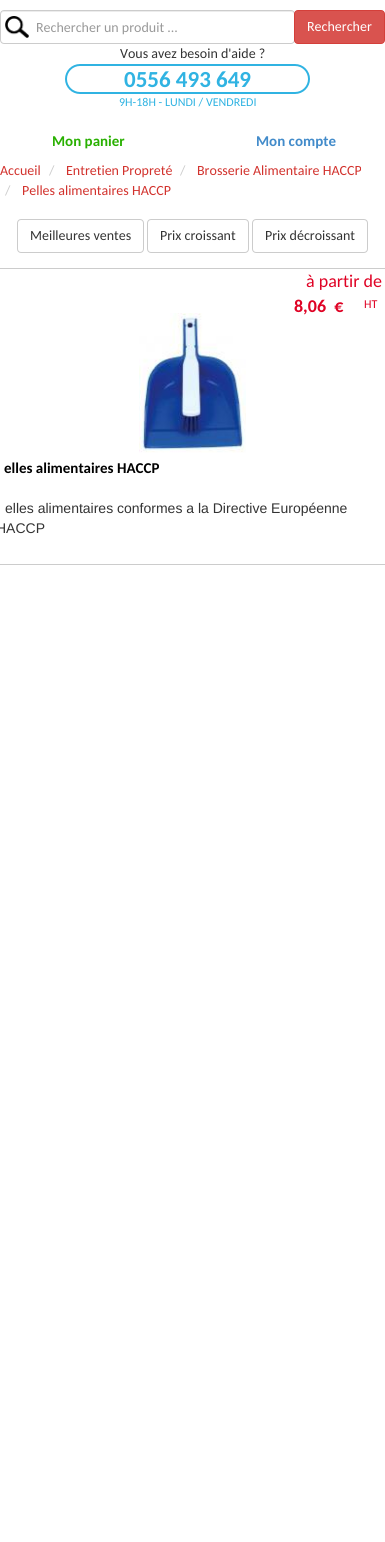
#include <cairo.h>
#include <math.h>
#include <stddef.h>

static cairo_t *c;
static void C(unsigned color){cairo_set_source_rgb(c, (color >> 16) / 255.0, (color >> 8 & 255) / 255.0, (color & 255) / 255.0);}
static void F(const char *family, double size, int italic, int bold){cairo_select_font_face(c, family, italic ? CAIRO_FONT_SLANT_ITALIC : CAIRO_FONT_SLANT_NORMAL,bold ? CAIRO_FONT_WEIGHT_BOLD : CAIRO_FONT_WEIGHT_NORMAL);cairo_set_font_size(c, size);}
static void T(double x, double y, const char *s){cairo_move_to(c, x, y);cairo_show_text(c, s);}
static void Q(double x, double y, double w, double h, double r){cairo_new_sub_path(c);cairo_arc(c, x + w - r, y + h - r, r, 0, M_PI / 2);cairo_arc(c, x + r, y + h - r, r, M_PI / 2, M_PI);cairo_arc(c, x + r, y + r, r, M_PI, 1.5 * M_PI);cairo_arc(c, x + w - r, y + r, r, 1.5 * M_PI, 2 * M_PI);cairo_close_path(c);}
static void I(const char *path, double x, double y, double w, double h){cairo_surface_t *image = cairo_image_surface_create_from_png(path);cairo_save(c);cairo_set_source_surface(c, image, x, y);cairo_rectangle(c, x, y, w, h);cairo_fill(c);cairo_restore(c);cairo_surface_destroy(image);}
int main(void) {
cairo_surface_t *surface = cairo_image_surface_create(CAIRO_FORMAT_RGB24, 385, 1542);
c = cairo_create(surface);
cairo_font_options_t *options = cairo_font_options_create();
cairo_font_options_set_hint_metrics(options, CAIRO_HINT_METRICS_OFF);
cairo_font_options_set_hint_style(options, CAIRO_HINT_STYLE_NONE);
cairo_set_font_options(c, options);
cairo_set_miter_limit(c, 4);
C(0xffffff);
cairo_paint(c);
C(0xececec);
cairo_new_path(c);
cairo_move_to(c,4,12);
cairo_line_to(c,291,12);
cairo_curve_to(c,293,12,294,13,294,15);
cairo_curve_to(c,294,13,293,11,291,11);
cairo_line_to(c,4,11);
cairo_curve_to(c,2,11,1,13,1,15);
cairo_curve_to(c,1,13,2,12,4,12);
cairo_close_path(c);
cairo_fill(c);
Q(.5,10.5,294,33,3.5);
C(0xcccccc);
cairo_set_line_width(c,1);
cairo_stroke(c);
I("1.png",5,16,24,22);
F("Carlito",14,0,0);
C(0x999999);
T(36,32,"Rechercher un produit ...");
C(0xd9534f);
Q(294.5,10.5,90,33,3.5);
cairo_fill_preserve(c);
C(0xd43f3a);
cairo_stroke(c);
C(0xffffff);
T(307,31,"Rechercher");
C(0x333333);
T(120,58,"Vous avez besoin d'aide ?");
Q(66,65,243,28,14);
C(0x30b3e2);
cairo_set_line_width(c,2);
cairo_stroke(c);
F("Carlito",23,0,1);
T(124,87,"0556 493 649");
F("Carlito",12,0,0);
T(119,106,"9H-18H - LUNDI / VENDREDI");
F("Carlito",15,0,1);
C(0x29b001);
T(52,146,"Mon panier");
C(0x428bca);
T(256,146,"Mon compte");
F("Carlito",14,0,0);
C(0xd2322d);
T(0,175,"Accueil");
C(0xcccccc);
T(49,175,"/");
C(0xd2322d);
T(66,175,"Entretien Propreté");
C(0xcccccc);
T(180,175,"/");
C(0xd2322d);
T(197,175,"Brosserie Alimentaire HACCP");
C(0xcccccc);
T(5,195,"/");
C(0xd2322d);
T(22,195,"Pelles alimentaires HACCP");
Q(17.5,219.5,126,33,3.5);
C(0xcccccc);
cairo_set_line_width(c,1);
cairo_stroke(c);
C(0x333333);
T(30,240,"Meilleures ventes");
Q(147.5,219.5,101,33,3.5);
C(0xcccccc);
cairo_stroke(c);
C(0x333333);
T(160,240,"Prix croissant");
Q(252.5,219.5,115,33,3.5);
C(0xcccccc);
cairo_stroke(c);
C(0x333333);
T(265,240,"Prix décroissant");
cairo_rectangle(c,-.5,268.5,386,296);
C(0xcccccc);
cairo_stroke(c);
F("Carlito",18,0,0);
C(0xdf0224);
T(306,287,"à partir de");
F("Carlito",18,0,1);
T(294,312,"8,06  €");
F("Carlito",12,0,0);
T(364,308,"HT");
I("2.png",139,313,107,140);
F("Carlito",15,0,1);
C(0x000000);
T(4,473,"elles alimentaires HACCP");
F("Liberation Sans",14,0,0);
C(0x333333);
T(5,513,"elles alimentaires conformes a la Directive Européenne");
T(-4,533,"HACCP");
cairo_surface_write_to_png(surface, "o.png");
cairo_font_options_destroy(options);
cairo_destroy(c);
cairo_surface_destroy(surface);
return 0;
}
